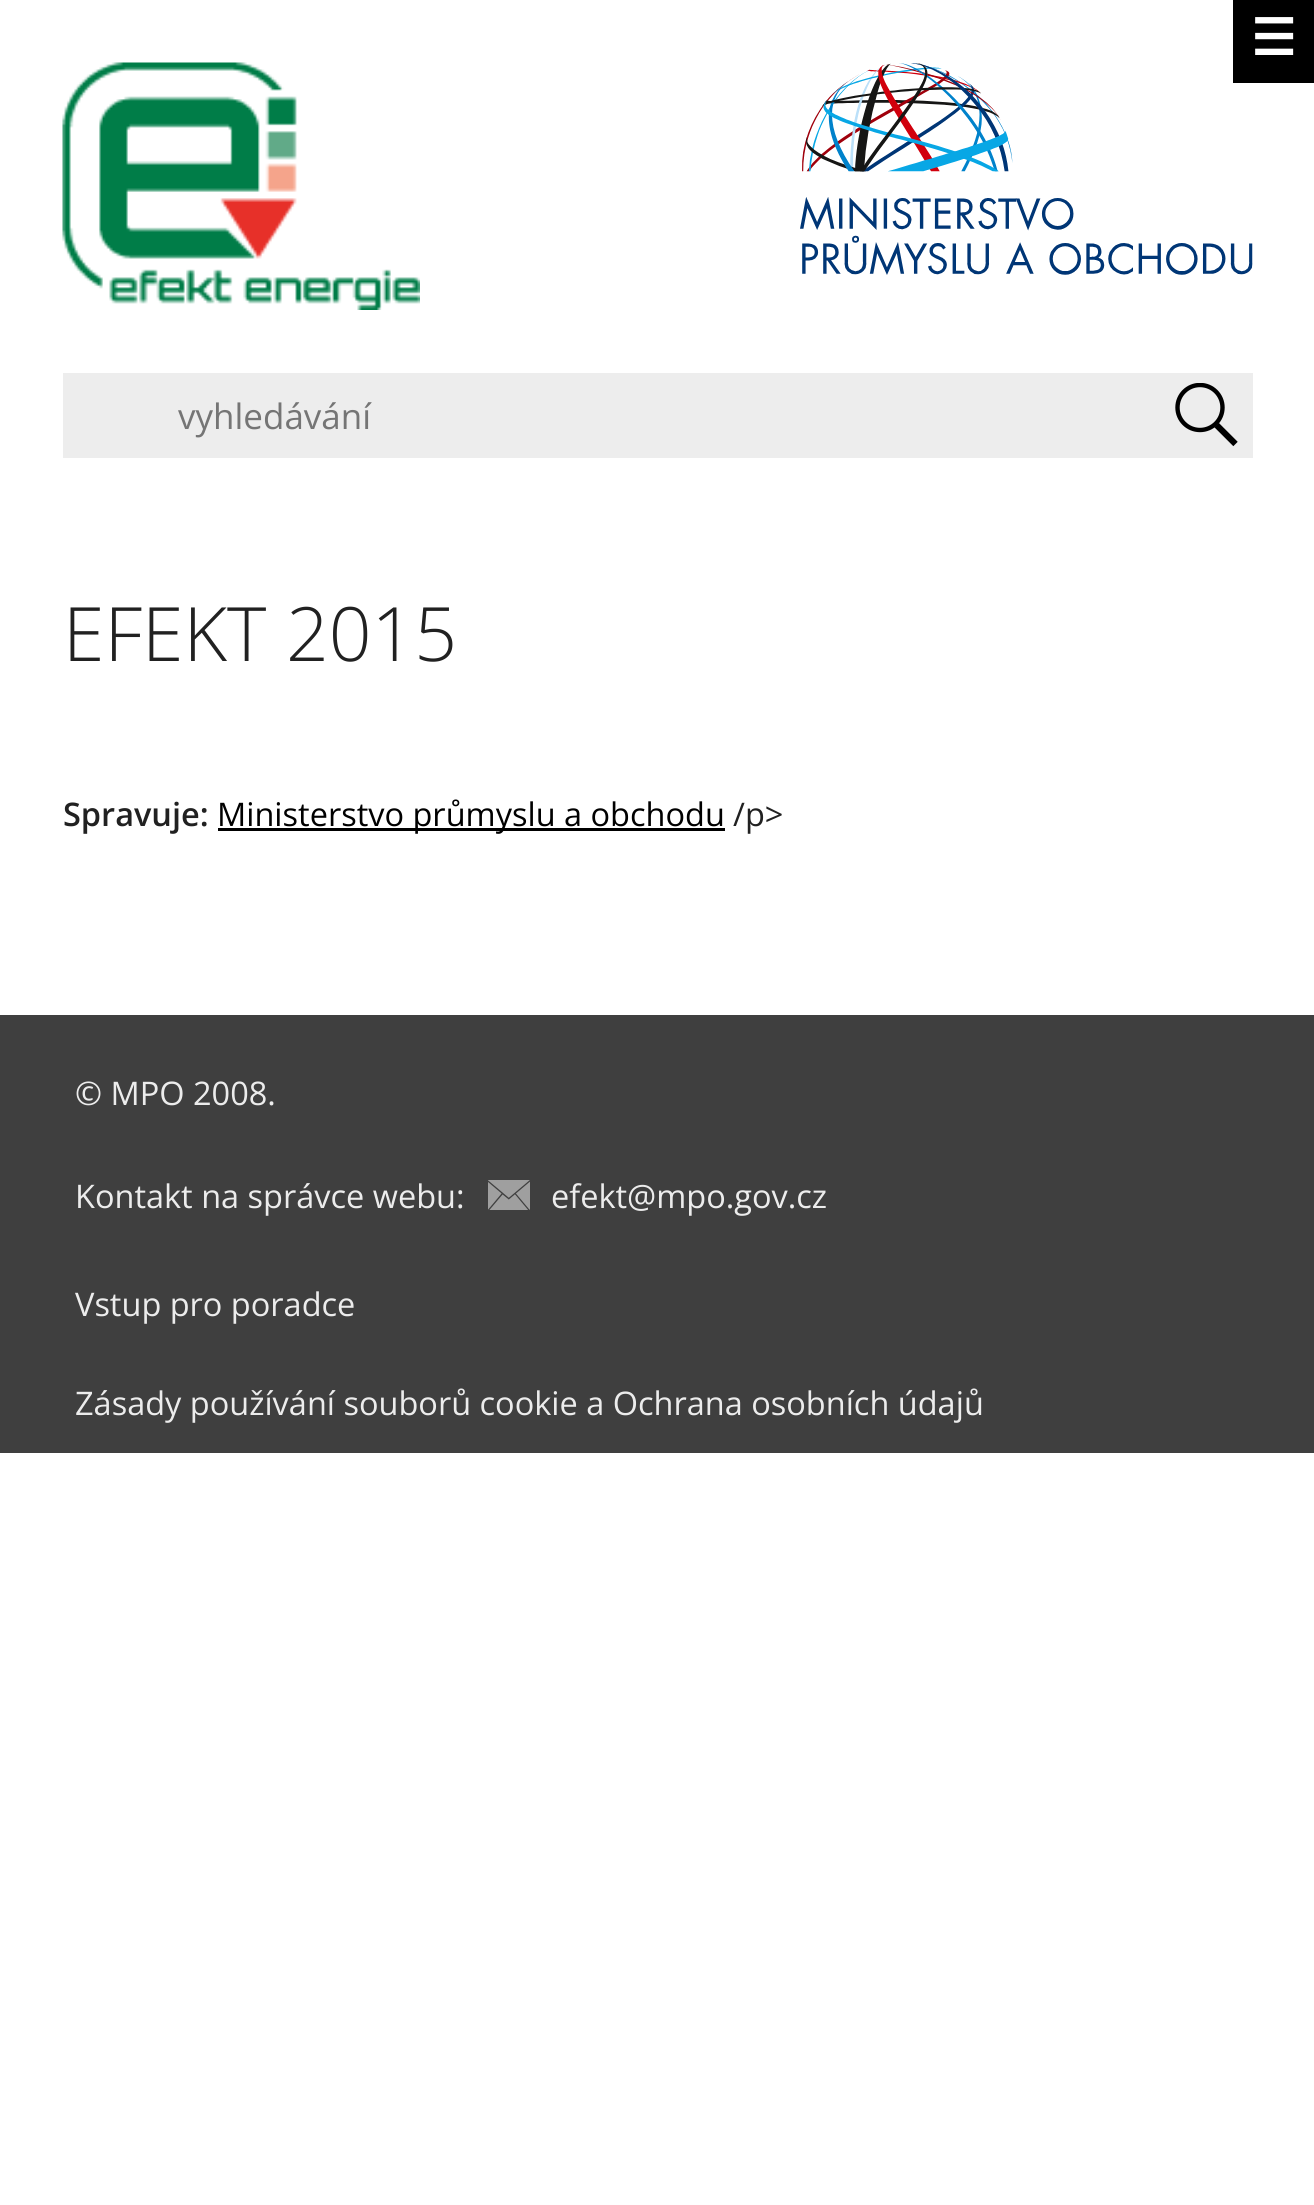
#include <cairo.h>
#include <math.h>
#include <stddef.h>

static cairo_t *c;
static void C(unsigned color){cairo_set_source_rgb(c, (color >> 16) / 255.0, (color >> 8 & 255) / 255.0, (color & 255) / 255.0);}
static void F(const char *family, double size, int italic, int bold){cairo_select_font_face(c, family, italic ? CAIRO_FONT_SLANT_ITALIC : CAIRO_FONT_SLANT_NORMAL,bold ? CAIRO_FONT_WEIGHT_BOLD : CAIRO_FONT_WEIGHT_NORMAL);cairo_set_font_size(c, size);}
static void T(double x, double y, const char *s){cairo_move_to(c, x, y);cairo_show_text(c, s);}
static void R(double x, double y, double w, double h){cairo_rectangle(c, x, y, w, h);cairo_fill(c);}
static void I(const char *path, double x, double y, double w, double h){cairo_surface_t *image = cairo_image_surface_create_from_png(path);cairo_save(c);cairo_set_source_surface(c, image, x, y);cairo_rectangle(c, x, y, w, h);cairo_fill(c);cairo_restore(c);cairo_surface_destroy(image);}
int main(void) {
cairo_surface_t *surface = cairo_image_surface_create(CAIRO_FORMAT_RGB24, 1314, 2205);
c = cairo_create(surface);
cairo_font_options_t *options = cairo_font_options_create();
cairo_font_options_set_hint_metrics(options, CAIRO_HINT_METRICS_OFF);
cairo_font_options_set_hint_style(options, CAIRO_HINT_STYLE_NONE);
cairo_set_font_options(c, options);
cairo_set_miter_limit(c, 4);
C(0xffffff);
cairo_paint(c);
I("2.png",800,63,453,212);
C(0x000000);
R(1233,0,81,83);
F("DejaVu Sans",50,0,1);
C(0xffffff);
T(1251,55,"☰");
I("1.png",62,62,358,248);
C(0xededed);
R(63,373,1190,85);
F("Open Sans",35,0,0);
C(0x757575);
T(178,429,"vyhledávání");
cairo_save(c);
cairo_rectangle(c,1175,383,63,65);
cairo_clip(c);
cairo_arc(c,1200,407.5,22.5,0,2 * M_PI);
C(0x000000);
cairo_set_line_width(c,4.4);
cairo_stroke(c);
cairo_restore(c);
cairo_new_path(c);
cairo_move_to(c,1216.5,425);
cairo_line_to(c,1235.5,444);
C(0x000000);
cairo_set_line_width(c,6.2);
cairo_stroke(c);
F("Open Sans Light",75,0,0);
C(0x212121);
T(63,661,"EFEKT 2015");
F("Open Sans SemiBold",32.5,0,0);
T(63,826,"Spravuje:");
C(0x000000);
R(218,828,507,3);
F("Open Sans",32.5,0,0);
T(217,826,"Ministerstvo průmyslu a obchodu");
C(0x212121);
T(733,826,"/p>");
C(0x3f3f3f);
R(0,1015,1314,438);
C(0xececec);
T(75,1105,"© MPO 2008.");
T(75,1208,"Kontakt na správce webu:");
I("3.png",488,1180,42,30);
T(551,1208,"efekt@mpo.gov.cz");
T(75,1316,"Vstup pro poradce");
T(75,1415,"Zásady používání souborů cookie a Ochrana osobních údajů");
cairo_surface_write_to_png(surface, "o.png");
cairo_font_options_destroy(options);
cairo_destroy(c);
cairo_surface_destroy(surface);
return 0;
}
